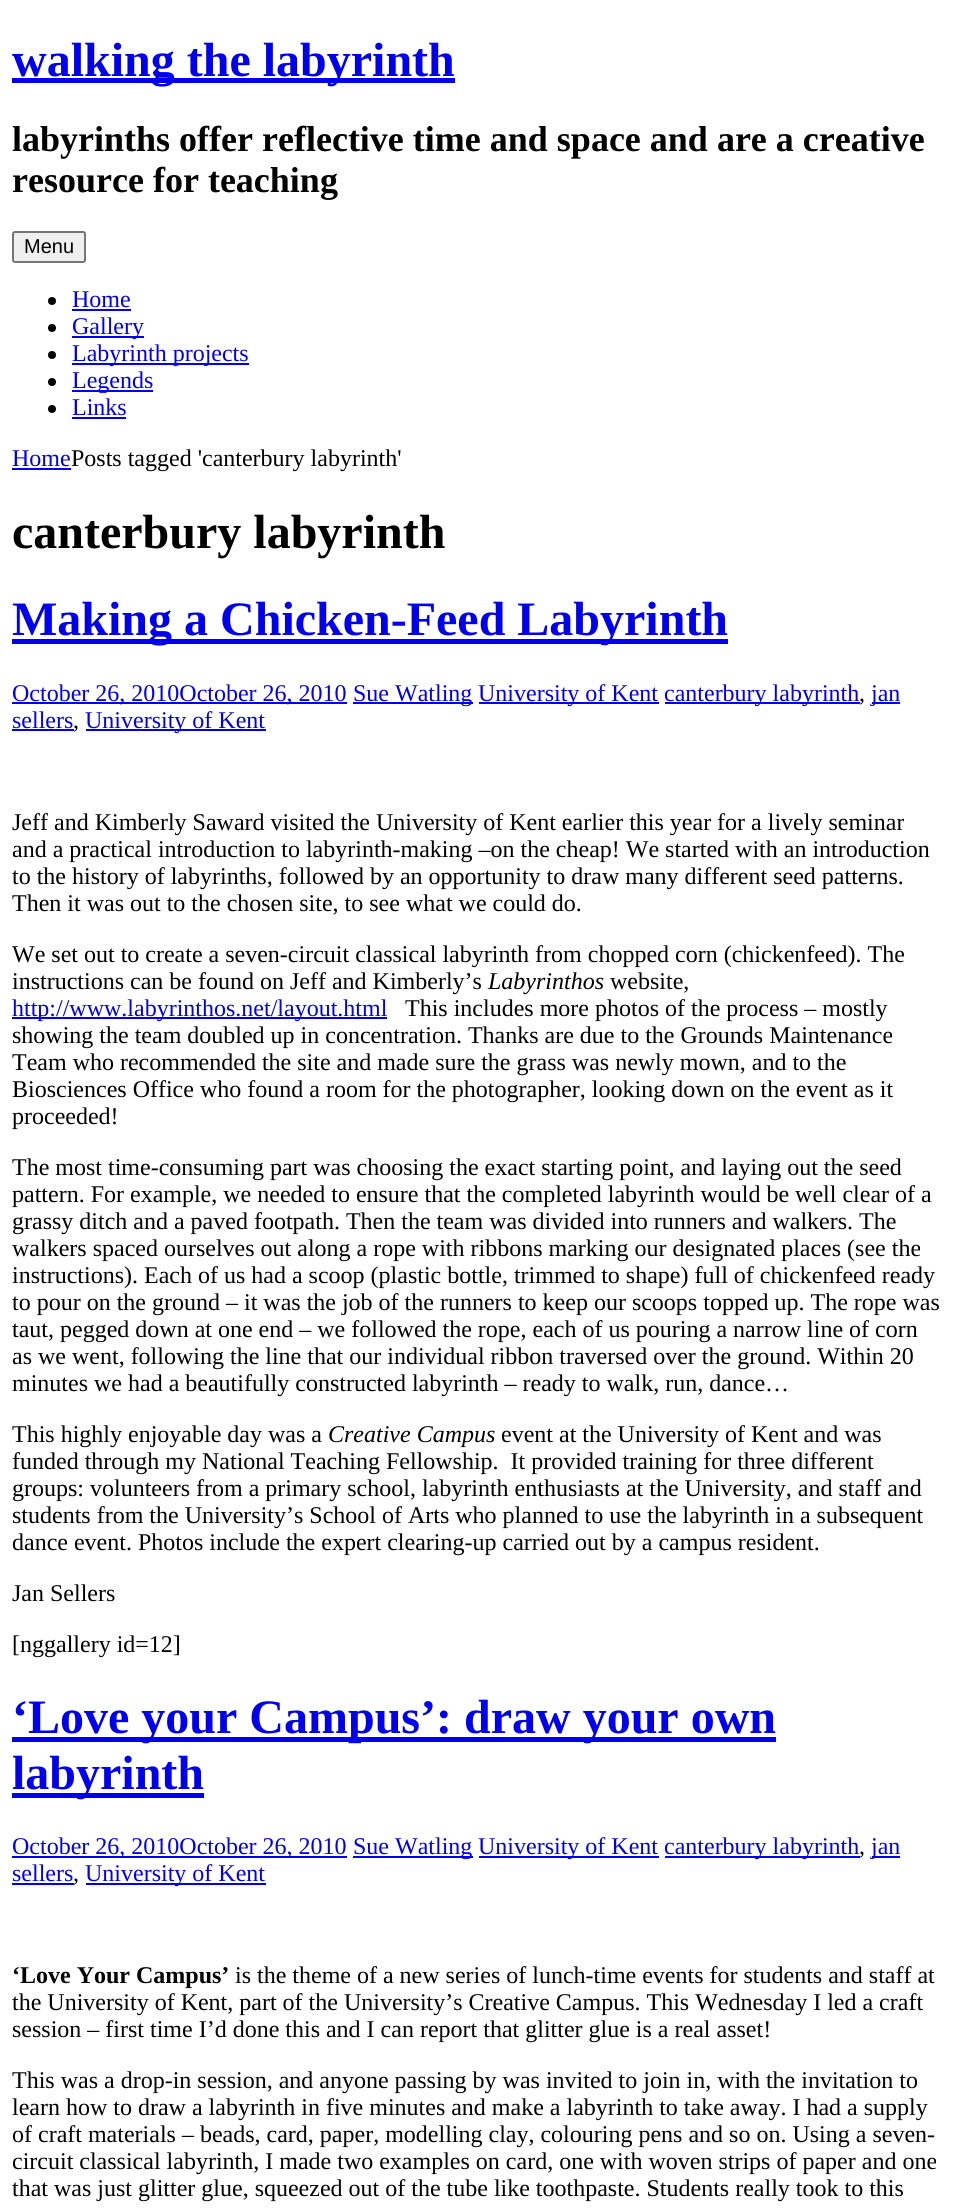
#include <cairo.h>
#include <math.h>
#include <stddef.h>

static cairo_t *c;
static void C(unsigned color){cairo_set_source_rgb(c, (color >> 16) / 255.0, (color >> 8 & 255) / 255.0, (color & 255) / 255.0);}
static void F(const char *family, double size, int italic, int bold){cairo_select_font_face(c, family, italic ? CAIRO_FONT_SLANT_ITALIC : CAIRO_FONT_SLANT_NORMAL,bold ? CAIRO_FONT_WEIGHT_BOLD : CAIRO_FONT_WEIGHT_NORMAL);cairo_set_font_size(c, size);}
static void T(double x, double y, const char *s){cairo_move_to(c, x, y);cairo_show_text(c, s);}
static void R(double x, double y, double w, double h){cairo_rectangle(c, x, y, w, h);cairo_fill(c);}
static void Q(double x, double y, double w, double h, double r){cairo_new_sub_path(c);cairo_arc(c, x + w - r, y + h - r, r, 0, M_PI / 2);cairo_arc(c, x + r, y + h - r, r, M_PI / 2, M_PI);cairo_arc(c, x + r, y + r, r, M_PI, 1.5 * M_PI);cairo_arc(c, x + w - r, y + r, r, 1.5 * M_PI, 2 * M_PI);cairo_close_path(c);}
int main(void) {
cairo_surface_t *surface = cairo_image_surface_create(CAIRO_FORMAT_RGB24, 955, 2212);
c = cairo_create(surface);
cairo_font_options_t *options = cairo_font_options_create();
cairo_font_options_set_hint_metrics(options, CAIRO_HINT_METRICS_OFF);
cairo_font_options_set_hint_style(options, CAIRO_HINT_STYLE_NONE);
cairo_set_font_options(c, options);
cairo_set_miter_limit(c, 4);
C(0xffffff);
cairo_paint(c);
C(0x0000ee);
R(12,78,443,5);
F("Liberation Serif",48,0,1);
T(12,76,"walking the labyrinth");
F("Liberation Serif",36,0,1);
C(0x000000);
T(12,151,"labyrinths offer reflective time and space and are a creative");
T(12,192,"resource for teaching");
C(0xefefef);
Q(13,232,72,30,2);
cairo_fill_preserve(c);
C(0x767676);
cairo_stroke(c);
F("Liberation Sans",20,0,0);
C(0x000000);
T(24,253,"Menu");
cairo_new_path(c);
cairo_arc(c,52,301,4,0,2 * M_PI);
cairo_fill(c);
F("Liberation Serif",24,0,0);
C(0x0000ee);
T(72,307,"Home");
R(72,309,59,2);
C(0x000000);
cairo_new_path(c);
cairo_arc(c,52,328,4,0,2 * M_PI);
cairo_fill(c);
C(0x0000ee);
R(72,336,72,2);
T(72,334,"Gallery");
C(0x000000);
cairo_new_path(c);
cairo_arc(c,52,355,4,0,2 * M_PI);
cairo_fill(c);
C(0x0000ee);
R(72,363,177,2);
T(72,361,"Labyrinth projects");
C(0x000000);
cairo_new_path(c);
cairo_arc(c,52,382,4,0,2 * M_PI);
cairo_fill(c);
C(0x0000ee);
R(72,390,81,2);
T(72,388,"Legends");
C(0x000000);
cairo_new_path(c);
cairo_arc(c,52,409,4,0,2 * M_PI);
cairo_fill(c);
C(0x0000ee);
T(72,415,"Links");
R(72,417,54,2);
T(12,466,"Home");
R(12,468,59,2);
C(0x000000);
T(71,466,"Posts tagged 'canterbury labyrinth'");
F("Liberation Serif",48,0,1);
T(12,548,"canterbury labyrinth");
C(0x0000ee);
R(12,639,716,5);
T(12,635,"Making a Chicken-Feed Labyrinth");
R(12,702,335,2);
F("Liberation Serif",24,0,0);
T(12,701,"October 26, 2010October 26, 2010");
R(353,702,120,2);
T(353,701,"Sue Watling");
R(479,702,180,2);
T(478,701,"University of Kent");
R(665,702,195,2);
T(664,701,"canterbury labyrinth");
C(0x000000);
T(859,701,",");
C(0x0000ee);
R(872,702,28,2);
T(871,701,"jan");
T(12,728,"sellers");
C(0x000000);
T(73,728,",");
C(0x0000ee);
R(12,729,62,2);
R(86,729,180,2);
T(85,728,"University of Kent");
C(0x000000);
T(12,830,"Jeff and Kimberly Saward visited the University of Kent earlier this year for a lively seminar");
T(12,857,"and a practical introduction to labyrinth-making –on the cheap! We started with an introduction");
T(12,884,"to the history of labyrinths, followed by an opportunity to draw many different seed patterns.");
T(12,911,"Then it was out to the chosen site, to see what we could do.");
T(12,962,"We set out to create a seven-circuit classical labyrinth from chopped corn (chickenfeed). The");
T(12,989,"instructions can be found on Jeff and Kimberly’s");
F("Liberation Serif",24,1,0);
T(488,989,"Labyrinthos");
F("Liberation Serif",24,0,0);
T(610,989,"website,");
C(0x0000ee);
R(12,1017,375,2);
T(12,1016,"http://www.labyrinthos.net/layout.html");
C(0x000000);
T(405,1016,"This includes more photos of the process – mostly");
T(12,1043,"showing the team doubled up in concentration. Thanks are due to the Grounds Maintenance");
T(12,1070,"Team who recommended the site and made sure the grass was newly mown, and to the");
T(12,1097,"Biosciences Office who found a room for the photographer, looking down on the event as it");
T(12,1124,"proceeded!");
T(12,1175,"The most time-consuming part was choosing the exact starting point, and laying out the seed");
T(12,1202,"pattern. For example, we needed to ensure that the completed labyrinth would be well clear of a");
T(12,1229,"grassy ditch and a paved footpath. Then the team was divided into runners and walkers. The");
T(12,1256,"walkers spaced ourselves out along a rope with ribbons marking our designated places (see the");
T(12,1283,"instructions). Each of us had a scoop (plastic bottle, trimmed to shape) full of chickenfeed ready");
T(12,1310,"to pour on the ground – it was the job of the runners to keep our scoops topped up. The rope was");
T(12,1337,"taut, pegged down at one end – we followed the rope, each of us pouring a narrow line of corn");
T(12,1364,"as we went, following the line that our individual ribbon traversed over the ground. Within 20");
T(12,1391,"minutes we had a beautifully constructed labyrinth – ready to walk, run, dance…");
T(12,1442,"This highly enjoyable day was a");
F("Liberation Serif",24,1,0);
T(328,1442,"Creative Campus");
F("Liberation Serif",24,0,0);
T(501,1442,"event at the University of Kent and was");
T(12,1469,"funded through my National Teaching Fellowship.  It provided training for three different");
T(12,1496,"groups: volunteers from a primary school, labyrinth enthusiasts at the University, and staff and");
T(12,1523,"students from the University’s School of Arts who planned to use the labyrinth in a subsequent");
T(12,1550,"dance event. Photos include the expert clearing-up carried out by a campus resident.");
T(12,1601,"Jan Sellers");
T(12,1652,"[nggallery id=12]");
C(0x0000ee);
R(12,1737,764,5);
F("Liberation Serif",48,0,1);
T(12,1733,"‘Love your Campus’: draw your own");
R(12,1793,192,5);
T(12,1789,"labyrinth");
R(12,1856,335,2);
F("Liberation Serif",24,0,0);
T(12,1854,"October 26, 2010October 26, 2010");
R(353,1856,120,2);
T(353,1854,"Sue Watling");
R(479,1856,180,2);
T(478,1854,"University of Kent");
R(665,1856,195,2);
T(664,1854,"canterbury labyrinth");
C(0x000000);
T(859,1854,",");
C(0x0000ee);
R(872,1856,28,2);
T(871,1854,"jan");
T(12,1881,"sellers");
C(0x000000);
T(73,1881,",");
C(0x0000ee);
R(12,1883,62,2);
R(86,1883,180,2);
T(85,1881,"University of Kent");
F("Liberation Serif",24,0,1);
C(0x000000);
T(12,1983,"‘Love Your Campus’");
F("Liberation Serif",24,0,0);
T(235,1983,"is the theme of a new series of lunch-time events for students and staff at");
T(12,2010,"the University of Kent, part of the University’s Creative Campus. This Wednesday I led a craft");
T(12,2037,"session – first time I’d done this and I can report that glitter glue is a real asset!");
T(12,2088,"This was a drop-in session, and anyone passing by was invited to join in, with the invitation to");
T(12,2115,"learn how to draw a labyrinth in five minutes and make a labyrinth to take away. I had a supply");
T(12,2142,"of craft materials – beads, card, paper, modelling clay, colouring pens and so on. Using a seven-");
T(12,2169,"circuit classical labyrinth, I made two examples on card, one with woven strips of paper and one");
T(12,2196,"that was just glitter glue, squeezed out of the tube like toothpaste. Students really took to this");
cairo_surface_write_to_png(surface, "o.png");
cairo_font_options_destroy(options);
cairo_destroy(c);
cairo_surface_destroy(surface);
return 0;
}
